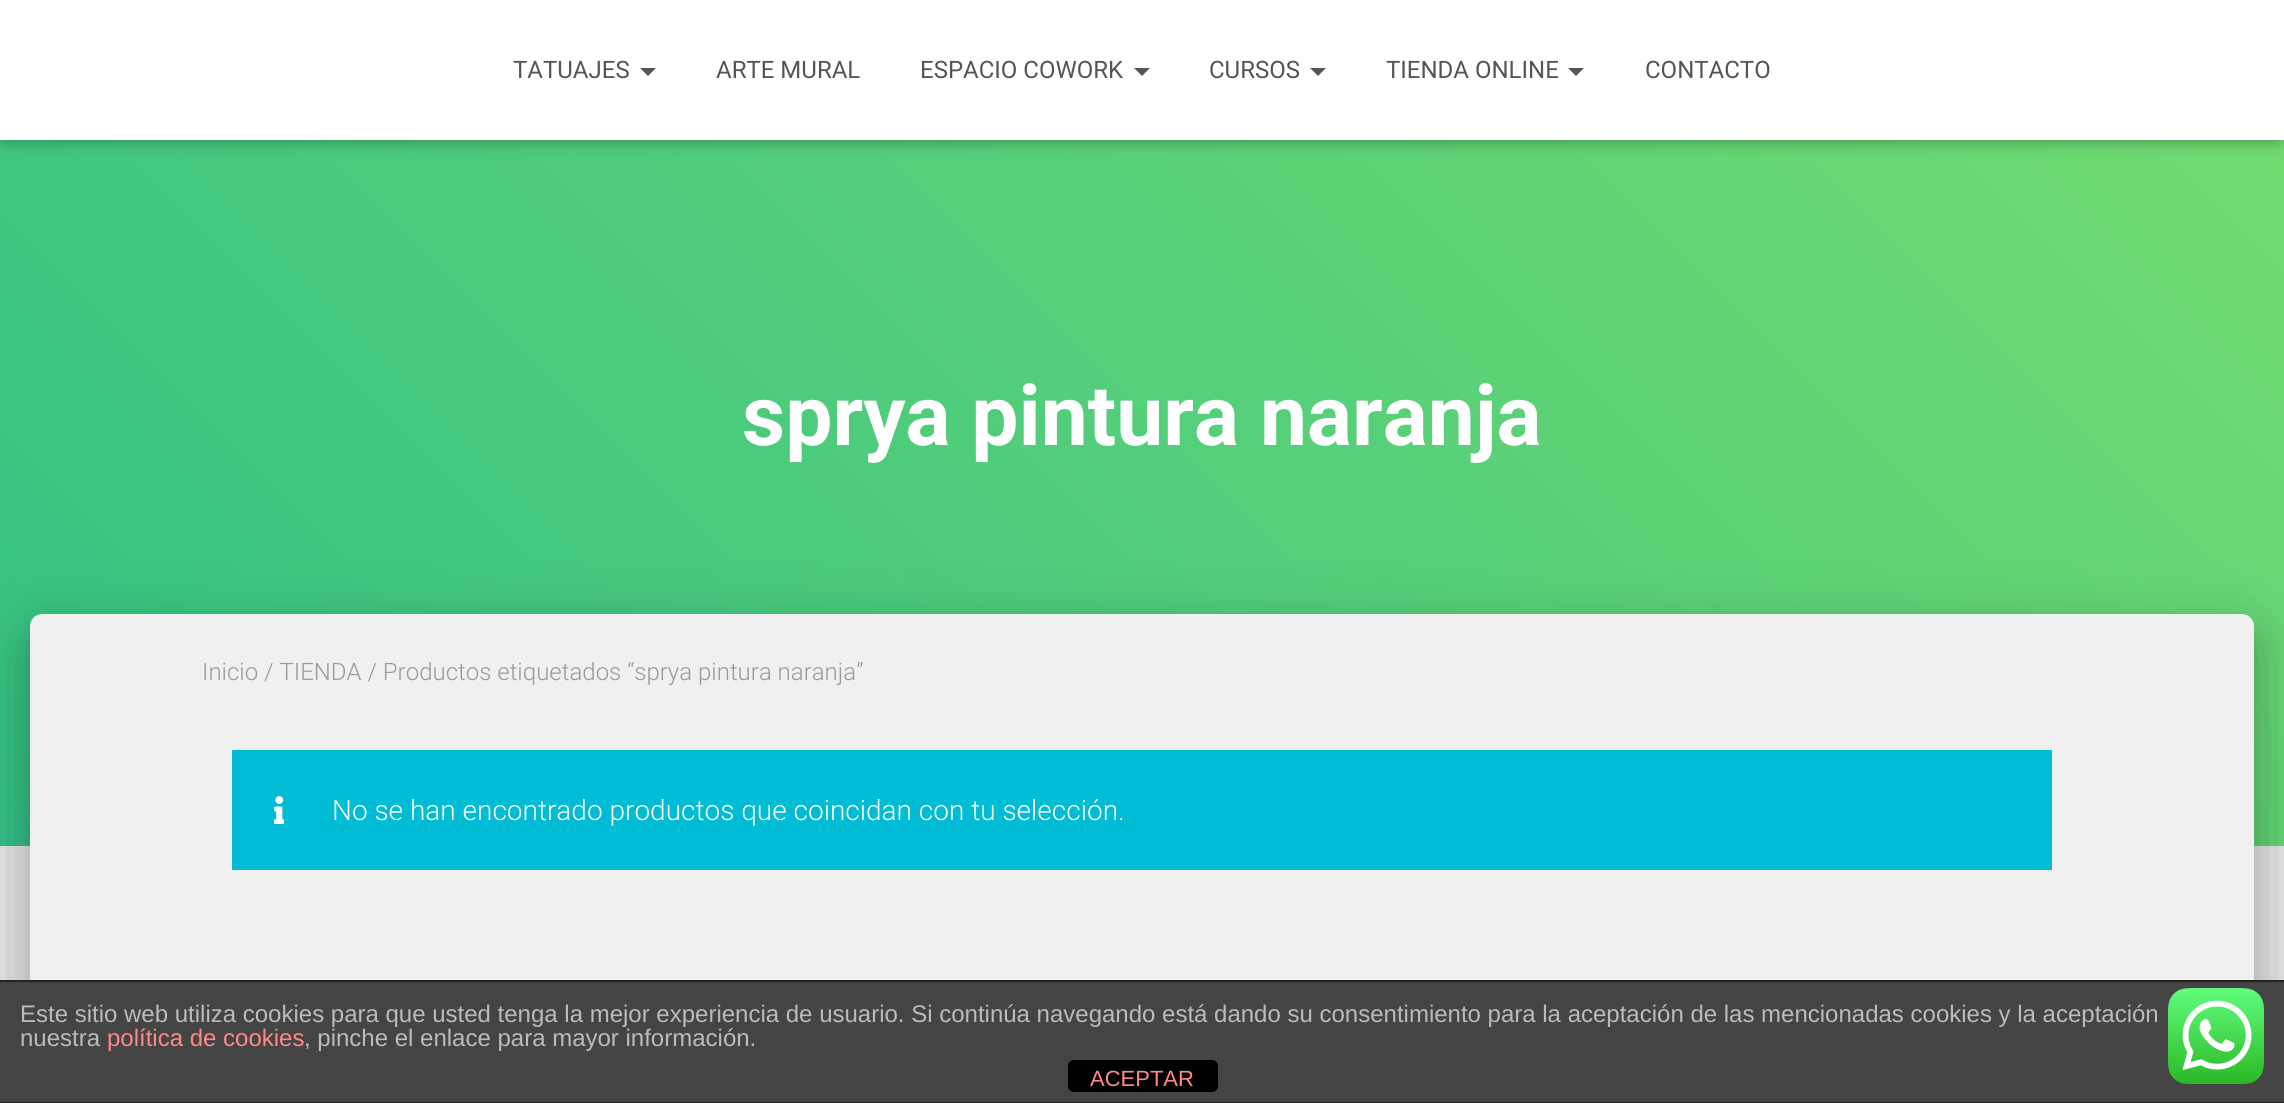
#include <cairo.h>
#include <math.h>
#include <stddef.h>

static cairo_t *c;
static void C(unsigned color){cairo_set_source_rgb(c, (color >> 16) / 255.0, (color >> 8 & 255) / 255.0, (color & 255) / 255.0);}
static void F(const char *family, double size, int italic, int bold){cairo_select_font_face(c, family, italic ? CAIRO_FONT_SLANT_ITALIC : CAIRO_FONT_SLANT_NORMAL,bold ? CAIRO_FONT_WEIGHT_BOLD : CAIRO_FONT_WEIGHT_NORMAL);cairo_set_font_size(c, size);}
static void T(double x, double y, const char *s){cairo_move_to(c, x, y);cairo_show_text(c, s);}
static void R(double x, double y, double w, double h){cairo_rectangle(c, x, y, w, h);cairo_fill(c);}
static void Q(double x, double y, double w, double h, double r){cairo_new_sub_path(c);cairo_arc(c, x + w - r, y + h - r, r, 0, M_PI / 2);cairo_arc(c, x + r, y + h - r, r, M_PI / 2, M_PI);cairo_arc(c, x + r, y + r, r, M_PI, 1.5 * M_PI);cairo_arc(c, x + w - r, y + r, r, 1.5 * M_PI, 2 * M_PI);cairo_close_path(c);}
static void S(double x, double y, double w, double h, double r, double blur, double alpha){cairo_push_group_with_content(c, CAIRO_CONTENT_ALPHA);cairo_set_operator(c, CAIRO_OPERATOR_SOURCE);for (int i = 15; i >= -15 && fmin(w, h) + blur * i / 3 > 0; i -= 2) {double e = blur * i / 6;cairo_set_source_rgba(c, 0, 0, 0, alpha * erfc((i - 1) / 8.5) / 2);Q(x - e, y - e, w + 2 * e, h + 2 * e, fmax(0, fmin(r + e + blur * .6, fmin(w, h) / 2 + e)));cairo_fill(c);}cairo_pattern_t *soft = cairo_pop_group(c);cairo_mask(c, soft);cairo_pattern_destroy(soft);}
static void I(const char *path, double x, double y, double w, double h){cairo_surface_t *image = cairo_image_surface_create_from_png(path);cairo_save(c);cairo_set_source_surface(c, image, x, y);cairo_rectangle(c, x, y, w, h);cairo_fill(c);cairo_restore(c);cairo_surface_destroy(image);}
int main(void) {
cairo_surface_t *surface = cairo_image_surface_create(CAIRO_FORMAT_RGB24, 2284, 1103);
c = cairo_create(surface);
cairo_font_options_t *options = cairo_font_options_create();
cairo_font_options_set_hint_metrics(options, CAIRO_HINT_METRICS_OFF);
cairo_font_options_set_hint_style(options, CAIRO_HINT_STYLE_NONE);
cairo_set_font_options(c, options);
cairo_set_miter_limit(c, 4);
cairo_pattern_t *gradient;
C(0xe5e5e5);
cairo_paint(c);
gradient = cairo_pattern_create_linear(323,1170,1961,-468);
cairo_pattern_add_color_stop_rgba(gradient,0,0.204,0.757,0.518,1);
cairo_pattern_add_color_stop_rgba(gradient,1,0.463,0.867,0.435,1);
cairo_set_source(c,gradient);
cairo_pattern_destroy(gradient);
R(0,140,2284,706);
C(0x000000);
S(4,12,2276,132,0,5,.1);
S(0,2,2284,140,0,10,.12);
S(12,14,2260,116,0,10,.42);
C(0xffffff);
R(0,0,2284,140);
F("Roboto",24,0,0);
C(0x555555);
T(513,78,"TATUAJES");
cairo_new_path(c);
cairo_move_to(c,640,68);
cairo_line_to(c,656,68);
cairo_line_to(c,648,76);
cairo_close_path(c);
cairo_fill(c);
T(716,78,"ARTE MURAL");
T(920,78,"ESPACIO COWORK");
cairo_new_path(c);
cairo_move_to(c,1134,68);
cairo_line_to(c,1150,68);
cairo_line_to(c,1142,76);
cairo_close_path(c);
cairo_fill(c);
T(1209,78,"CURSOS");
cairo_new_path(c);
cairo_move_to(c,1310,68);
cairo_line_to(c,1326,68);
cairo_line_to(c,1318,76);
cairo_close_path(c);
cairo_fill(c);
T(1386,78,"TIENDA ONLINE");
cairo_new_path(c);
cairo_move_to(c,1568,68);
cairo_line_to(c,1584,68);
cairo_line_to(c,1576,76);
cairo_close_path(c);
cairo_fill(c);
T(1645,78,"CONTACTO");
F("Roboto",84,0,1);
C(0xffffff);
T(742,445,"sprya pintura naranja");
C(0x000000);
S(40,640,2204,432,2,10,.2);
S(20,616,2244,472,22,30,.12);
S(26,642,2232,460,16,24,.14);
C(0xf0f0f0);
cairo_new_path(c);
cairo_move_to(c,42,614);
cairo_line_to(c,2242,614);
cairo_curve_to(c,2248.5,614,2254,619.5,2254,626);
cairo_line_to(c,2254,1066);
cairo_line_to(c,30,1066);
cairo_line_to(c,30,626);
cairo_curve_to(c,30,619.5,35.5,614,42,614);
cairo_close_path(c);
cairo_fill(c);
F("Roboto Light",24,0,0);
C(0x999999);
T(202,680,"Inicio / TIENDA / Productos etiquetados “sprya pintura naranja”");
C(0x00bcd4);
R(232,750,1820,120);
I("1.png",274,796,10,28);
F("Roboto Light",28,0,0);
C(0xffffff);
T(332,820,"No se han encontrado productos que coincidan con tu selección.");
C(0x444444);
R(0,982,2284,120);
C(0x222222);
R(0,980,2284,2);
R(0,1102,2284,1);
F("Liberation Sans",24,0,0);
C(0xbbbbbb);
T(20,1022,"Este sitio web utiliza cookies para que usted tenga la mejor experiencia de usuario. Si continúa navegando está dando su consentimiento para la aceptación de las mencionadas cookies y la aceptación");
T(20,1046,"nuestra");
C(0xff8888);
T(107,1046,"política de cookies");
C(0xbbbbbb);
T(304,1046,", pinche el enlace para mayor información.");
C(0x000000);
Q(1068,1060,150,32,6);
cairo_fill(c);
F("Liberation Sans",22,0,0);
C(0xff8888);
T(1090,1086,"ACEPTAR");
I("2.png",2168,988,96,96);
cairo_surface_write_to_png(surface, "o.png");
cairo_font_options_destroy(options);
cairo_destroy(c);
cairo_surface_destroy(surface);
return 0;
}
